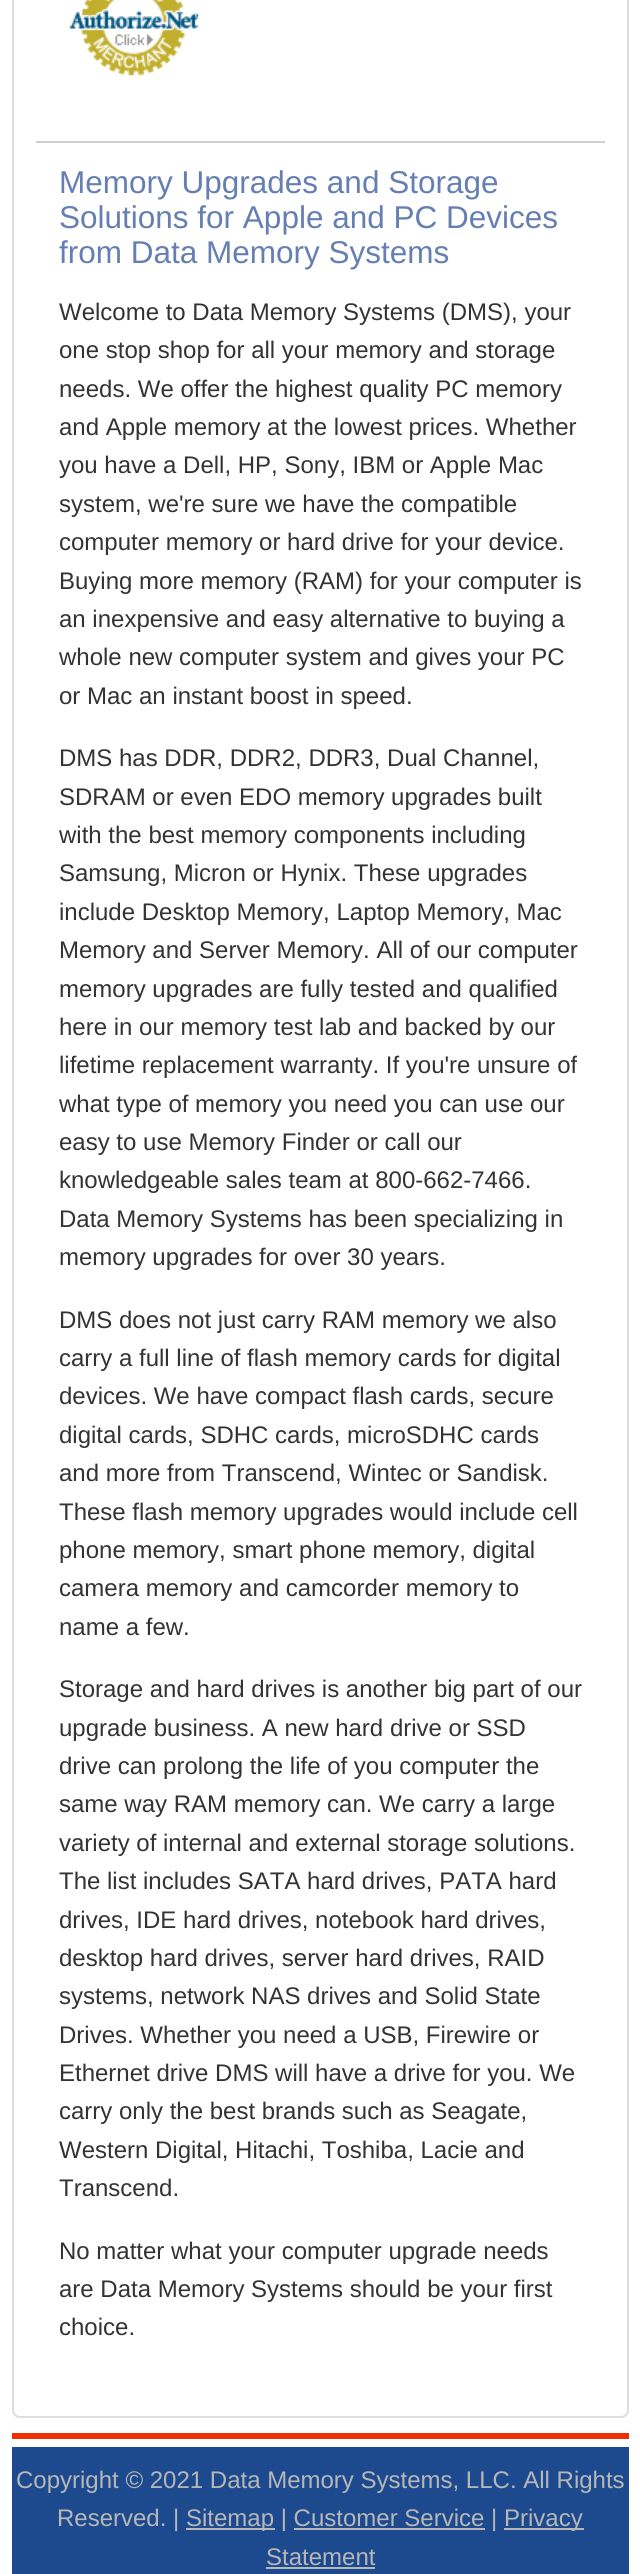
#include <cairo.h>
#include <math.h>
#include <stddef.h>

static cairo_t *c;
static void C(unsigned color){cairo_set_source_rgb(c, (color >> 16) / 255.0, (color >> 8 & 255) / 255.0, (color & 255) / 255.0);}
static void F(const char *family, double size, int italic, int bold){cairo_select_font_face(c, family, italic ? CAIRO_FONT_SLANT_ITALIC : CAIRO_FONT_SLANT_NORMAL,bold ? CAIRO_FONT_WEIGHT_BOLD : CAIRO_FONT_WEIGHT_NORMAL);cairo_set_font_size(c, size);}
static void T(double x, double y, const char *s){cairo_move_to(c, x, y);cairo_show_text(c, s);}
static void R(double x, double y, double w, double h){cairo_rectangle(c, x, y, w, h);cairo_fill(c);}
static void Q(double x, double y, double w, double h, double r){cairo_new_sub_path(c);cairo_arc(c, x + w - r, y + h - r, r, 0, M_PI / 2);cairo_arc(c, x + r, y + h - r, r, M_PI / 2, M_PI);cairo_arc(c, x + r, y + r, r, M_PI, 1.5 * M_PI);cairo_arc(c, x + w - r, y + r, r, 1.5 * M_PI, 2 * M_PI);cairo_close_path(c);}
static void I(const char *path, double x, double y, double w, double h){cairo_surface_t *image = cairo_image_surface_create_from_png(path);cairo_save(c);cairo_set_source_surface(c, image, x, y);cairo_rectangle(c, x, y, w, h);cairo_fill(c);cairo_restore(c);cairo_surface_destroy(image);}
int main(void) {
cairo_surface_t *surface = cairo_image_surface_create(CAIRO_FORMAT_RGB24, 640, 2574);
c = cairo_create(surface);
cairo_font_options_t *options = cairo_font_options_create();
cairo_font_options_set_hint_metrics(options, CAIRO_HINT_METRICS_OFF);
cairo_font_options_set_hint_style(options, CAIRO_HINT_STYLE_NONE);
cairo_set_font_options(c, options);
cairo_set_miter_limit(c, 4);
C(0xffffff);
cairo_paint(c);
Q(13,-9,615,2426,7);
C(0xdddddd);
cairo_stroke(c);
C(0xcfcfcf);
R(36,141,569,2);
I("1.png",68,0,131,76);
F("Liberation Sans",31.5,0,0);
C(0x657fb2);
T(59,193,"Memory Upgrades and Storage");
T(59,228,"Solutions for Apple and PC Devices");
T(59,263,"from Data Memory Systems");
F("Liberation Sans",24,0,0);
C(0x333333);
T(59,320,"Welcome to Data Memory Systems (DMS), your");
T(59,358,"one stop shop for all your memory and storage");
T(59,397,"needs. We offer the highest quality PC memory");
T(59,435,"and Apple memory at the lowest prices. Whether");
T(59,473,"you have a Dell, HP, Sony, IBM or Apple Mac");
T(59,512,"system, we're sure we have the compatible");
T(59,550,"computer memory or hard drive for your device.");
T(59,589,"Buying more memory (RAM) for your computer is");
T(59,627,"an inexpensive and easy alternative to buying a");
T(59,665,"whole new computer system and gives your PC");
T(59,704,"or Mac an instant boost in speed.");
T(59,766,"DMS has DDR, DDR2, DDR3, Dual Channel,");
T(59,805,"SDRAM or even EDO memory upgrades built");
T(59,843,"with the best memory components including");
T(59,881,"Samsung, Micron or Hynix. These upgrades");
T(59,920,"include Desktop Memory, Laptop Memory, Mac");
T(59,958,"Memory and Server Memory. All of our computer");
T(59,997,"memory upgrades are fully tested and qualified");
T(59,1035,"here in our memory test lab and backed by our");
T(59,1073,"lifetime replacement warranty. If you're unsure of");
T(59,1112,"what type of memory you need you can use our");
T(59,1150,"easy to use Memory Finder or call our");
T(59,1188,"knowledgeable sales team at 800-662-7466.");
T(59,1227,"Data Memory Systems has been specializing in");
T(59,1265,"memory upgrades for over 30 years.");
T(59,1328,"DMS does not just carry RAM memory we also");
T(59,1366,"carry a full line of flash memory cards for digital");
T(59,1404,"devices. We have compact flash cards, secure");
T(59,1443,"digital cards, SDHC cards, microSDHC cards");
T(59,1481,"and more from Transcend, Wintec or Sandisk.");
T(59,1520,"These flash memory upgrades would include cell");
T(59,1558,"phone memory, smart phone memory, digital");
T(59,1596,"camera memory and camcorder memory to");
T(59,1635,"name a few.");
T(59,1697,"Storage and hard drives is another big part of our");
T(59,1736,"upgrade business. A new hard drive or SSD");
T(59,1774,"drive can prolong the life of you computer the");
T(59,1812,"same way RAM memory can. We carry a large");
T(59,1851,"variety of internal and external storage solutions.");
T(59,1889,"The list includes SATA hard drives, PATA hard");
T(59,1928,"drives, IDE hard drives, notebook hard drives,");
T(59,1966,"desktop hard drives, server hard drives, RAID");
T(59,2004,"systems, network NAS drives and Solid State");
T(59,2043,"Drives. Whether you need a USB, Firewire or");
T(59,2081,"Ethernet drive DMS will have a drive for you. We");
T(59,2119,"carry only the best brands such as Seagate,");
T(59,2158,"Western Digital, Hitachi, Toshiba, Lacie and");
T(59,2196,"Transcend.");
T(59,2259,"No matter what your computer upgrade needs");
T(59,2297,"are Data Memory Systems should be your first");
T(59,2335,"choice.");
C(0xeb2f02);
R(12,2433,617,6);
C(0x1d4a8e);
R(12,2447,617,127);
C(0xb7b7b7);
T(16,2488,"Copyright © 2021 Data Memory Systems, LLC. All Rights");
T(57,2526,"Reserved. |");
R(186,2528,89,2);
T(186,2526,"Sitemap | Customer Service |");
R(504,2528,80,2);
T(504,2526,"Privacy");
R(294,2528,191,2);
T(266,2565,"Statement");
R(266,2567,109,2);
cairo_surface_write_to_png(surface, "o.png");
cairo_font_options_destroy(options);
cairo_destroy(c);
cairo_surface_destroy(surface);
return 0;
}
